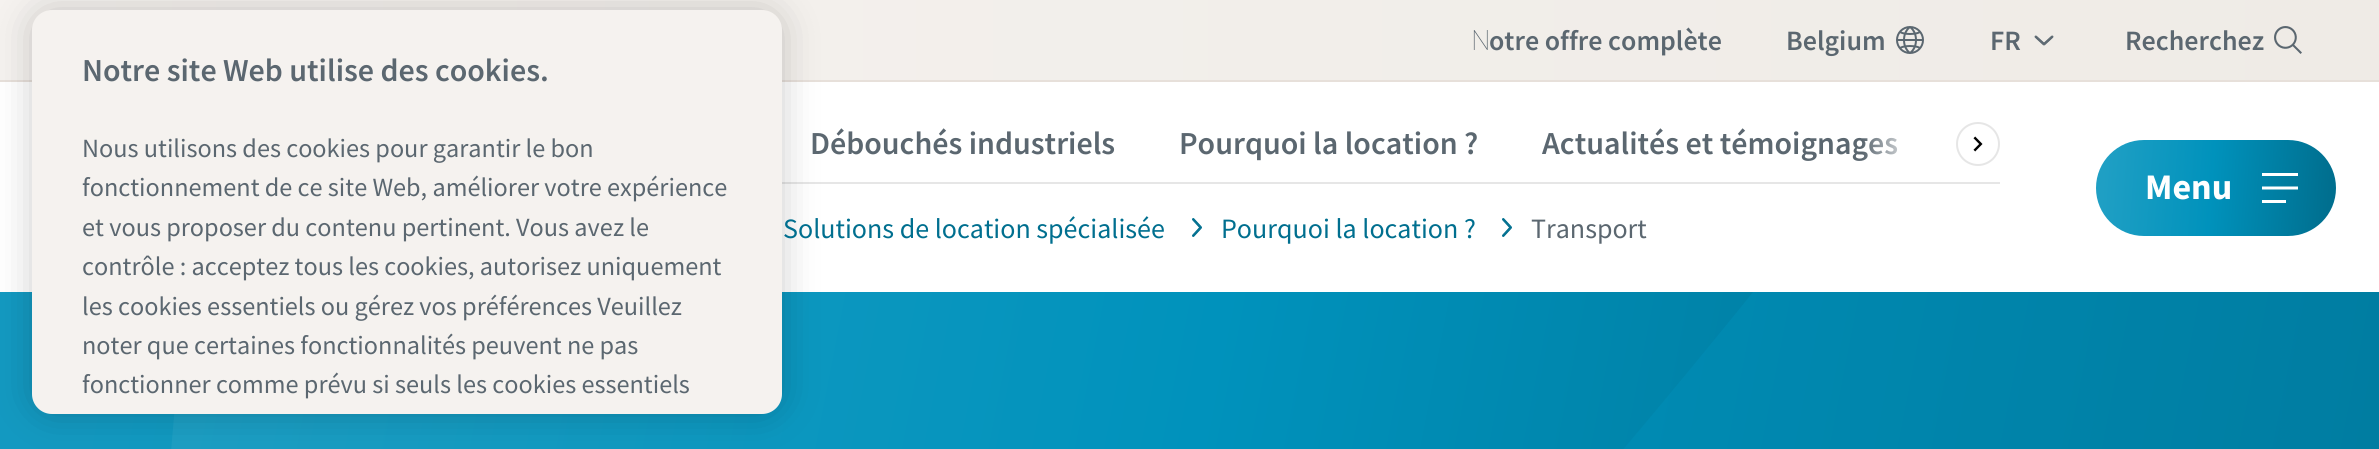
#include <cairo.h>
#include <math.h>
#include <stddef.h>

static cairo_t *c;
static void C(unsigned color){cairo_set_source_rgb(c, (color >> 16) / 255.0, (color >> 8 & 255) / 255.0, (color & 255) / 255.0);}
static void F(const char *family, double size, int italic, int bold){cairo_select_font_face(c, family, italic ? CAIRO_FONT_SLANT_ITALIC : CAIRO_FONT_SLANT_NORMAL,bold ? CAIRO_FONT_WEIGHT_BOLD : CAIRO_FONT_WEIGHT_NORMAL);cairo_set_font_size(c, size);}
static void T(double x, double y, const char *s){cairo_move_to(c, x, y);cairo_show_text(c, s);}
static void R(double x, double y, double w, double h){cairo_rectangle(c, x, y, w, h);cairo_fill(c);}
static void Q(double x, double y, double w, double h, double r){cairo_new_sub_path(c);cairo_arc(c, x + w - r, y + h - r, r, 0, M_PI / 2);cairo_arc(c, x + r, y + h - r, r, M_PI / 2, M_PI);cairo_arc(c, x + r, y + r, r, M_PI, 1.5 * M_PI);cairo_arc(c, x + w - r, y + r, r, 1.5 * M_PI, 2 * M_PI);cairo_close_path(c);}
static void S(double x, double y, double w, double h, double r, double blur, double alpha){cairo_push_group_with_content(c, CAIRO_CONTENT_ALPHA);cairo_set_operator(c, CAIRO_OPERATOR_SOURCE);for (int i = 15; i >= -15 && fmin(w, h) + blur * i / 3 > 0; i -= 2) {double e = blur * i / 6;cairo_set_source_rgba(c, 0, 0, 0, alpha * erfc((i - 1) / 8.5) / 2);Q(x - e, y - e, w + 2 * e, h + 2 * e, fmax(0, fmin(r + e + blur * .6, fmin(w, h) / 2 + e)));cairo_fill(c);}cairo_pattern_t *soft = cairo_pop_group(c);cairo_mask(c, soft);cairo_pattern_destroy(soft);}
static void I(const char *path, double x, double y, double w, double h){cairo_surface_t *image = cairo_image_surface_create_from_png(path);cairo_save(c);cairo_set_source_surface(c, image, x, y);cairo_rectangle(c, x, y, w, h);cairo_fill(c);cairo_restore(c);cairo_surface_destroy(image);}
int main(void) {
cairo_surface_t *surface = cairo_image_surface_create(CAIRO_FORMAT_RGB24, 2379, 449);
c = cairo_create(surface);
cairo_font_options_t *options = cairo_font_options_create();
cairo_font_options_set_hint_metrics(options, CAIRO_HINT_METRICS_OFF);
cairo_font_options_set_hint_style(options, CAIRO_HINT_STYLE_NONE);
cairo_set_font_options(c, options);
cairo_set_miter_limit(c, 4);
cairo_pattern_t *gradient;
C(0xffffff);
cairo_paint(c);
gradient = cairo_pattern_create_linear(0,40,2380,40);
cairo_pattern_add_color_stop_rgba(gradient,0,0.961,0.949,0.937,1);
cairo_pattern_add_color_stop_rgba(gradient,1,0.937,0.922,0.902,1);
cairo_set_source(c,gradient);
cairo_pattern_destroy(gradient);
R(0,0,2379,80);
C(0xe7e0da);
R(0,80,2379,2);
C(0xe6e6e6);
R(782,182,1218,2);
gradient = cairo_pattern_create_linear(-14,366,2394,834);
cairo_pattern_add_color_stop_rgba(gradient,.04,0.122,0.624,0.769,1);
cairo_pattern_add_color_stop_rgba(gradient,.49,0,0.573,0.737,1);
cairo_pattern_add_color_stop_rgba(gradient,.97,0,0.435,0.561,1);
cairo_set_source(c,gradient);
cairo_pattern_destroy(gradient);
R(0,292,2379,157);
cairo_save(c);
cairo_rectangle(c,0,292,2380,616);
cairo_clip(c);
cairo_set_source_rgba(c,0,0.573,0.737,0.4);
cairo_set_fill_rule(c,CAIRO_FILL_RULE_EVEN_ODD);
cairo_new_path(c);
cairo_move_to(c,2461,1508);
cairo_line_to(c,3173,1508);
cairo_line_to(c,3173,-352);
cairo_line_to(c,2242,-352);
cairo_curve_to(c,1694,399,1053,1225,573,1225);
cairo_curve_to(c,446,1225,352,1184,285,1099);
cairo_curve_to(c,123,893,124,439,289,-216);
cairo_curve_to(c,301,-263,313,-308,326,-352);
cairo_line_to(c,-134,-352);
cairo_line_to(c,-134,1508);
cairo_line_to(c,1165,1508);
cairo_curve_to(c,1637,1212,1968,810,2122,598);
cairo_curve_to(c,2116,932,2228,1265,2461,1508);
cairo_close_path(c);
cairo_fill(c);
cairo_restore(c);
C(0x000000);
S(32,10,750,404,20,18,.2);
C(0xf5f2ef);
Q(32,10,750,404,20);
cairo_fill(c);
F("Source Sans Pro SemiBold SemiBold",32,0,0);
C(0x5b6770);
T(82,81,"Notre site Web utilise des cookies.");
F("Source Sans Pro",26.25,0,0);
T(82,157,"Nous utilisons des cookies pour garantir le bon");
T(82,196,"fonctionnement de ce site Web, améliorer votre expérience");
T(82,236,"et vous proposer du contenu pertinent. Vous avez le");
T(82,275,"contrôle : acceptez tous les cookies, autorisez uniquement");
T(82,315,"les cookies essentiels ou gérez vos préférences Veuillez");
T(82,354,"noter que certaines fonctionnalités peuvent ne pas");
T(82,393,"fonctionner comme prévu si seuls les cookies essentiels");
F("Noto Sans Thin",28,0,0);
T(1471,50,"N");
F("Source Sans Pro SemiBold SemiBold",28,0,0);
T(1489,50,"otre offre complète");
T(1786,50,"Belgium");
I("1.png",1896,26,28,28);
T(1990,50,"FR");
I("2.png",2034,35,20,11);
T(2125,50,"Recherchez");
I("3.png",2274,26,28,28);
F("Source Sans Pro SemiBold SemiBold",32,0,0);
T(810,154,"Débouchés industriels");
T(1179,154,"Pourquoi la location ?");
T(1542,154,"Actualités et témoignages");
cairo_new_path(c);
cairo_arc(c,1978,144,21,0,2 * M_PI);
C(0xe6e6e6);
cairo_stroke(c);
gradient = cairo_pattern_create_linear(1958,142,1862,142);
cairo_pattern_add_color_stop_rgba(gradient,.4,1,1,1,1);
cairo_pattern_add_color_stop_rgba(gradient,1,1,1,1,0);
cairo_set_source(c,gradient);
cairo_pattern_destroy(gradient);
R(1863,137,35,23);
I("4.png",1973,136,10,16);
F("Source Sans Pro",28,0,0);
C(0x006f8f);
T(783,238,"Solutions de location spécialisée");
I("5.png",1192,218,10,19);
T(1221,238,"Pourquoi la location ?");
I("5.png",1502,218,10,19);
C(0x5b6770);
T(1531,238,"Transport");
gradient = cairo_pattern_create_linear(2093,179,2339,197);
cairo_pattern_add_color_stop_rgba(gradient,.04,0.122,0.624,0.769,1);
cairo_pattern_add_color_stop_rgba(gradient,.48,0,0.573,0.737,1);
cairo_pattern_add_color_stop_rgba(gradient,.96,0,0.435,0.561,1);
cairo_set_source(c,gradient);
cairo_pattern_destroy(gradient);
Q(2096,140,240,96,48);
cairo_fill(c);
F("Source Sans Pro",36,0,1);
C(0xffffff);
T(2145,199,"Menu");
cairo_new_path(c);
cairo_move_to(c,2298,173);
cairo_line_to(c,2262,173);
cairo_line_to(c,2262,176);
cairo_line_to(c,2298,176);
cairo_close_path(c);
cairo_move_to(c,2286,200);
cairo_line_to(c,2262,200);
cairo_line_to(c,2262,203);
cairo_line_to(c,2286,203);
cairo_close_path(c);
cairo_move_to(c,2298,186.5);
cairo_line_to(c,2262,186.5);
cairo_line_to(c,2262,189.5);
cairo_line_to(c,2298,189.5);
cairo_close_path(c);
cairo_fill(c);
cairo_surface_write_to_png(surface, "o.png");
cairo_font_options_destroy(options);
cairo_destroy(c);
cairo_surface_destroy(surface);
return 0;
}
